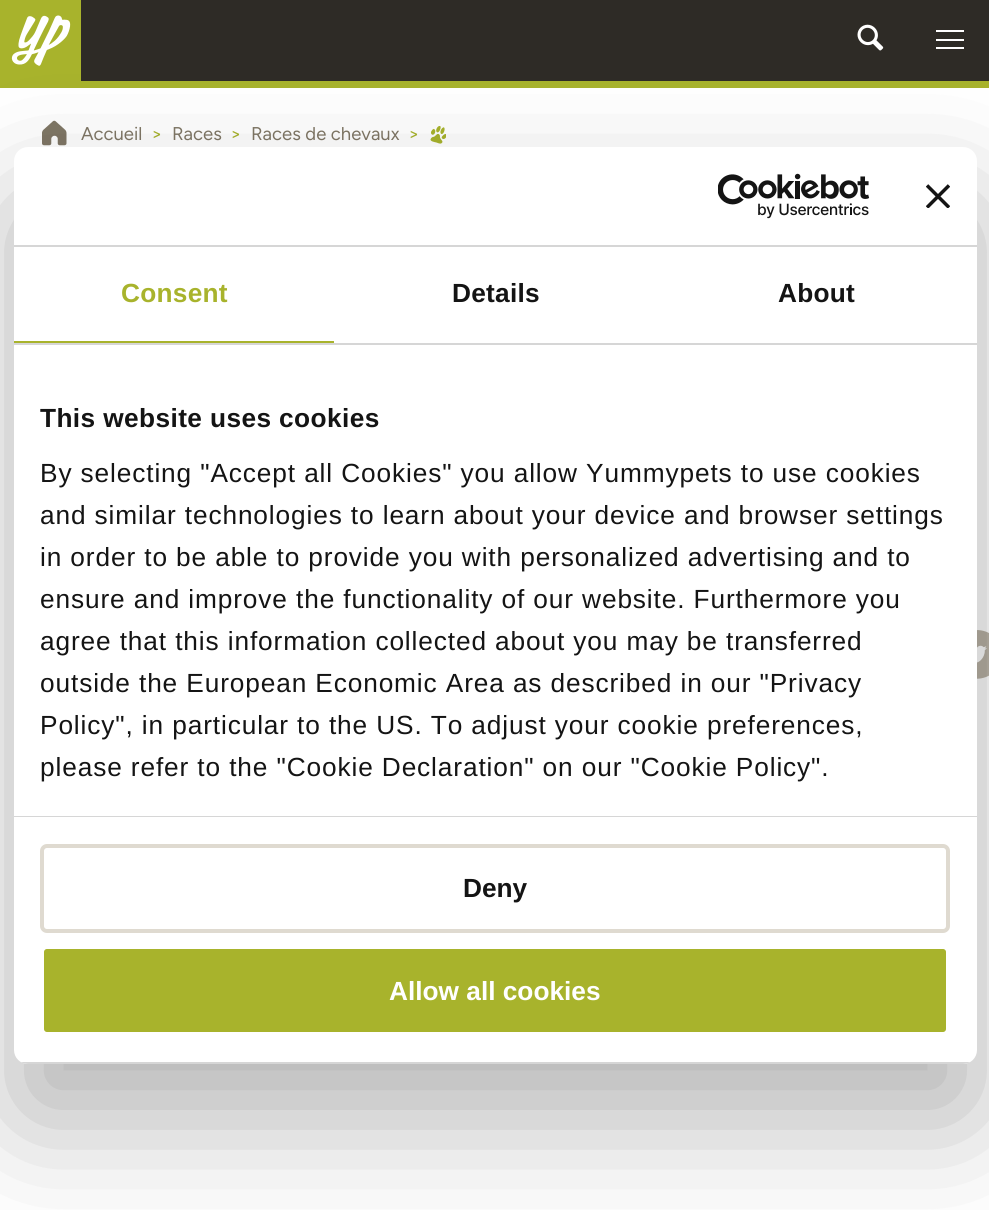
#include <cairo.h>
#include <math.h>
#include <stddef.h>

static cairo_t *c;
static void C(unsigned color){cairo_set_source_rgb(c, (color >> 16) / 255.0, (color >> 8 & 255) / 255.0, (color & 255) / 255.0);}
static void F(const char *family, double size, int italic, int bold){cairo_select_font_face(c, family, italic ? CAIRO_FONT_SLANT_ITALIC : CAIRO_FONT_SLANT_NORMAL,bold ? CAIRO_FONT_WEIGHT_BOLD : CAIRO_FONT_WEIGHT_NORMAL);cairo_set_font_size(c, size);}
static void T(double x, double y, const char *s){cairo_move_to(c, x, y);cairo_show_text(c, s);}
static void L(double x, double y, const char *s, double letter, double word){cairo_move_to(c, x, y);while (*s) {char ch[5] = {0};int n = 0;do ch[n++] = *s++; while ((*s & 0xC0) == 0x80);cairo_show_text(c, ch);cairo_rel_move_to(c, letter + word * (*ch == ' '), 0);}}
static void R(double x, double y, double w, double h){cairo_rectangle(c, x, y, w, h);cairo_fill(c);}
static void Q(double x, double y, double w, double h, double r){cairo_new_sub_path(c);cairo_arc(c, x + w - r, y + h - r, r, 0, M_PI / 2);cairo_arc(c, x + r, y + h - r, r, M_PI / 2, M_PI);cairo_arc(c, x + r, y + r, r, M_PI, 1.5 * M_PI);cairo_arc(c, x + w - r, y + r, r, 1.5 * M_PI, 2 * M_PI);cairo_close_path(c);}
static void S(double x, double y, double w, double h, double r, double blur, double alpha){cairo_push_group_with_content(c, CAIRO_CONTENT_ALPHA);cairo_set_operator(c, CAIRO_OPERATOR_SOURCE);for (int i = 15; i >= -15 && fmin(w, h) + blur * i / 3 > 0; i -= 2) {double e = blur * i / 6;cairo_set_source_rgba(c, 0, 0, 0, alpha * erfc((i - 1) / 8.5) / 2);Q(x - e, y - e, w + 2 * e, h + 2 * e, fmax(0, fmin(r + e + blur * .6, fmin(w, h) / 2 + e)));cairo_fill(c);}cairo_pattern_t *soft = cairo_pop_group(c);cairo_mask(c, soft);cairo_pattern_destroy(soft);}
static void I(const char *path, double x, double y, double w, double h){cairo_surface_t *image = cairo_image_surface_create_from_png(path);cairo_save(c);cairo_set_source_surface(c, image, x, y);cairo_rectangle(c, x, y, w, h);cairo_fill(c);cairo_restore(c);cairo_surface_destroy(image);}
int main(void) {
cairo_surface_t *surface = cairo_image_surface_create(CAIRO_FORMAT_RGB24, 989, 1210);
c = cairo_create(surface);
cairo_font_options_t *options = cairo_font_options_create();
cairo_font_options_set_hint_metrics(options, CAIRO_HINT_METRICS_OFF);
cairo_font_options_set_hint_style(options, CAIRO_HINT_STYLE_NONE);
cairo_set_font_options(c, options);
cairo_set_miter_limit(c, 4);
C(0xffffff);
cairo_paint(c);
C(0x2e2b26);
R(81,0,908,81);
C(0xa8b32c);
R(0,81,989,7);
R(0,0,81,81);
I("1.png",11,15,60,51);
I("2.png",857,24,27,27);
C(0xffffff);
R(936,30,28,2);
R(936,39,28,2);
R(936,47,28,2);
I("3.png",42,120,25,26);
F("Figtree",18.5,0,0);
C(0x807766);
T(81,140,"Accueil");
C(0xa8b32c);
T(151,140,">");
C(0x807766);
T(172,140,"Races");
C(0xa8b32c);
T(230,140,">");
C(0x807766);
T(251,140,"Races de chevaux");
C(0xa8b32c);
T(408,140,">");
I("4.png",430,126,16,18);
C(0xbbb4a7);
cairo_new_path(c);
cairo_move_to(c,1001,654);
cairo_curve_to(c,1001,622,952,622,952,654);
cairo_curve_to(c,952,687,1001,687,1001,654);
cairo_close_path(c);
cairo_fill(c);
I("5.png",977,645,10,18);
C(0x000000);
S(14,203,963,917,14,59.5,.3);
C(0xffffff);
Q(14,147,963,917,14);
cairo_fill(c);
C(0xd6d6d6);
R(14,245,963,2);
I("6.png",718,173,152,46);
I("7.png",926,184,24,24);
R(14,343,963,2);
C(0xa8b32c);
R(14,341,320,2);
F("Liberation Sans",26.25,0,1);
L(121,302,"Consent",.25,0);
C(0x141414);
L(452,302,"Details",.25,0);
L(778,302,"About",.25,0);
C(0xd6d6d6);
R(14,816,963,1);
C(0x141414);
L(40,427,"This website uses cookies",.4,0);
F("Liberation Sans",26.25,0,0);
L(40,482,"By selecting \"Accept all Cookies\" you allow Yummypets to use cookies",.88,0);
L(40,524,"and similar technologies to learn about your device and browser settings",.88,0);
L(40,566,"in order to be able to provide you with personalized advertising and to",.88,0);
L(40,608,"ensure and improve the functionality of our website. Furthermore you",.88,0);
L(40,650,"agree that this information collected about you may be transferred",.88,0);
L(40,692,"outside the European Economic Area as described in our \"Privacy",.88,0);
L(40,734,"Policy\", in particular to the US. To adjust your cookie preferences,",.88,0);
L(40,776,"please refer to the \"Cookie Declaration\" on our \"Cookie Policy\".",.88,0);
cairo_save(c);
Q(14,147,963,917,14);
cairo_clip(c);
C(0xd6d6d6);
R(14,1062,963,2);
cairo_restore(c);
Q(42,846,906,85,5);
C(0xdfdad0);
cairo_set_line_width(c,4);
cairo_stroke(c);
F("Liberation Sans",26.25,0,1);
C(0x141414);
T(463,897,"Deny");
C(0xa8b32c);
Q(42,947,906,87,5);
cairo_fill_preserve(c);
C(0xffffff);
cairo_stroke(c);
T(389,1000,"Allow all cookies");
cairo_surface_write_to_png(surface, "o.png");
cairo_font_options_destroy(options);
cairo_destroy(c);
cairo_surface_destroy(surface);
return 0;
}
